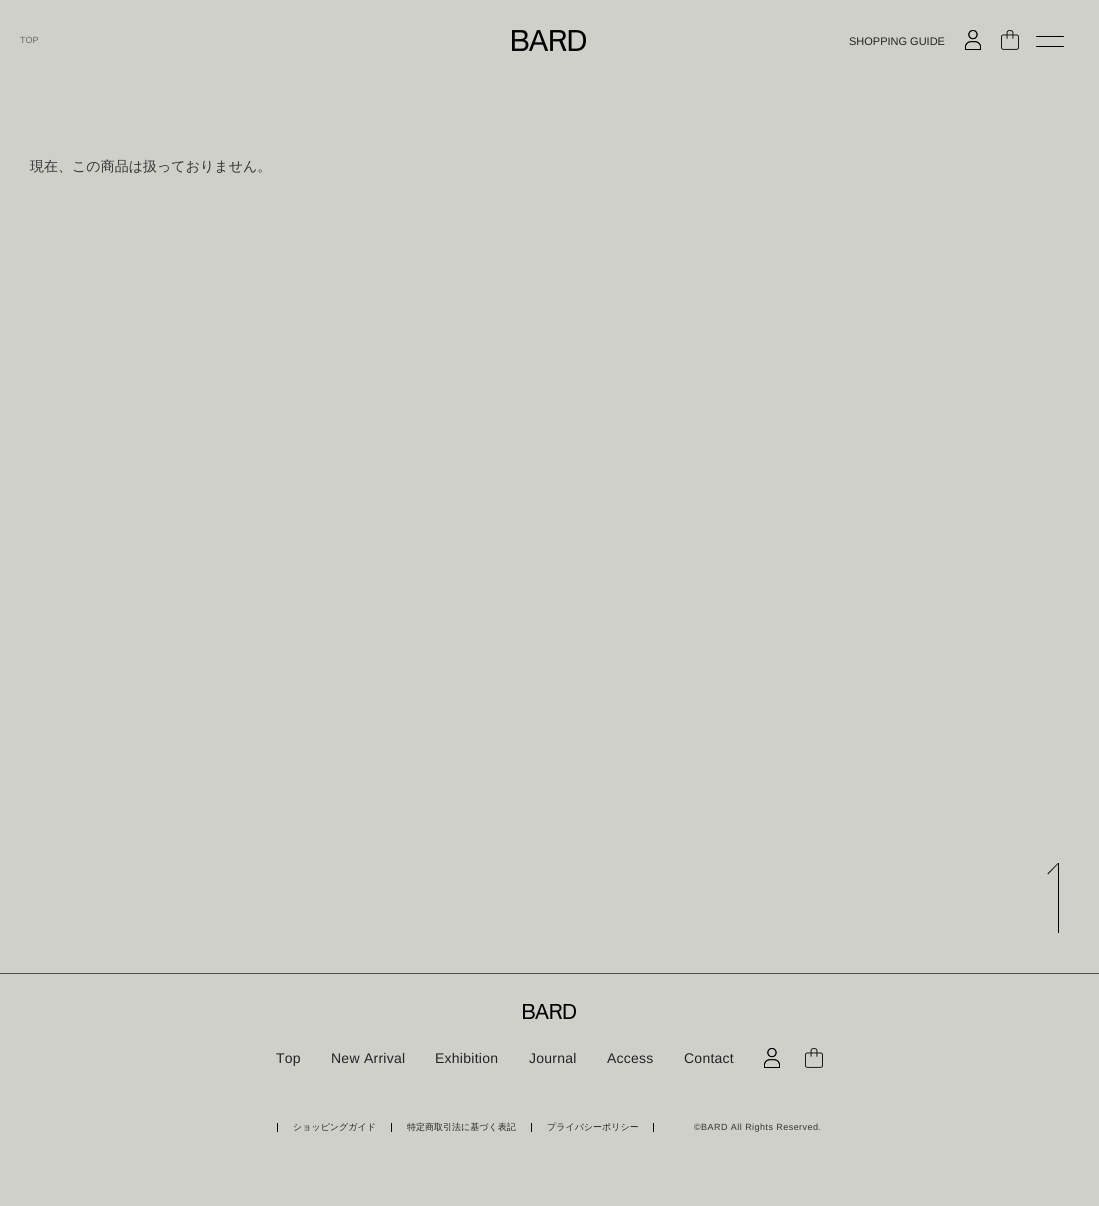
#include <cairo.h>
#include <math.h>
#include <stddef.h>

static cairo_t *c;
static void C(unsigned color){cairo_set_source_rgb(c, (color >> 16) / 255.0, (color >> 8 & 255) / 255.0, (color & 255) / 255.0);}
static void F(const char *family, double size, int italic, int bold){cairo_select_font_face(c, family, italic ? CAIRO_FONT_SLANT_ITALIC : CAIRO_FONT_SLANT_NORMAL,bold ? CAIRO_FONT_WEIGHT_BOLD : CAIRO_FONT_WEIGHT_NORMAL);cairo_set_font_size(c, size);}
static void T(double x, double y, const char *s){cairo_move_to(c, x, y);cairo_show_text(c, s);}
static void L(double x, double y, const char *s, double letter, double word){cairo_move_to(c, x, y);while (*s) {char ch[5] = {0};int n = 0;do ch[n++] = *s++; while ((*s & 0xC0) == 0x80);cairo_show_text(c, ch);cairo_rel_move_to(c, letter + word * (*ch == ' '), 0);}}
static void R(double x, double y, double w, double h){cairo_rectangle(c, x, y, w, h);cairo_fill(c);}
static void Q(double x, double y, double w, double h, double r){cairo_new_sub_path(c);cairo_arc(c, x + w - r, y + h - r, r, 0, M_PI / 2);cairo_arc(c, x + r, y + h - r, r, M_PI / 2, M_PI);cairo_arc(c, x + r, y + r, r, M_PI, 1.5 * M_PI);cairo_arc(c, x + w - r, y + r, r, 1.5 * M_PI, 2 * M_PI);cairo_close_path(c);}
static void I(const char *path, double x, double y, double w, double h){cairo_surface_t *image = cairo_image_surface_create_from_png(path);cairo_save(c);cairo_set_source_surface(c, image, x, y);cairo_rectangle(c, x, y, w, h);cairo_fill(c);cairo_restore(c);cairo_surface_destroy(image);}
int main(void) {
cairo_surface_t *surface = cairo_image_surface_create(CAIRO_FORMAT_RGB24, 1099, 1206);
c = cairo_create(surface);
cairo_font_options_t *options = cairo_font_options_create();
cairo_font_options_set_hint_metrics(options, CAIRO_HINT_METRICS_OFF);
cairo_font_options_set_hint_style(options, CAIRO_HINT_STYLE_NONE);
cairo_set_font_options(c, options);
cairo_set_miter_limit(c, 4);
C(0xd0d0ca);
cairo_paint(c);
F("Liberation Sans",9,0,0);
C(0x666666);
T(20,43,"TOP");
I("1.png",512,30,74,21);
F("Liberation Sans",11,0,0);
C(0x222222);
T(849,45,"SHOPPING GUIDE");
I("2.png",965,30,16,20);
I("3.png",1001,30,18,20);
C(0x000000);
Q(1036,36,28,1,.5);
cairo_fill(c);
Q(1036,46,28,1,.5);
cairo_fill(c);
F("WenQuanYi Zen Hei Medium",14,0,0);
C(0x333333);
T(30,171,"現在、この商品は扱っておりません。");
C(0x000000);
R(1058,863,1,70);
cairo_new_path(c);
cairo_move_to(c,1048,874.5);
cairo_line_to(c,1047.5,873.5);
cairo_line_to(c,1058,863);
cairo_line_to(c,1058.5,863.5);
cairo_close_path(c);
cairo_fill(c);
C(0x4d4d4d);
R(0,973,1099,1);
I("4.png",523,1004,53,15);
F("Liberation Sans",14,0,0);
C(0x222222);
L(276,1063,"Top",.25,0);
L(331,1063,"New Arrival",.25,0);
L(435,1063,"Exhibition",.25,0);
L(529,1063,"Journal",.25,0);
L(607,1063,"Access",.25,0);
L(684,1063,"Contact",.25,0);
I("2.png",764,1048,16,20);
I("3.png",805,1048,18,20);
C(0x000000);
R(391,1123,1,9);
R(277,1123,1,9);
F("WenQuanYi Zen Hei Medium",9,0,0);
C(0x222222);
T(293,1130,"ショッピングガイド");
C(0x000000);
R(531,1123,1,9);
C(0x222222);
T(407,1130,"特定商取引法に基づく表記");
C(0x000000);
R(653,1123,1,9);
C(0x222222);
T(547,1130,"プライバシーポリシー");
F("Liberation Sans",9,0,0);
C(0x333333);
L(694,1130,"©BARD All Rights Reserved.",.45,0);
cairo_surface_write_to_png(surface, "o.png");
cairo_font_options_destroy(options);
cairo_destroy(c);
cairo_surface_destroy(surface);
return 0;
}
